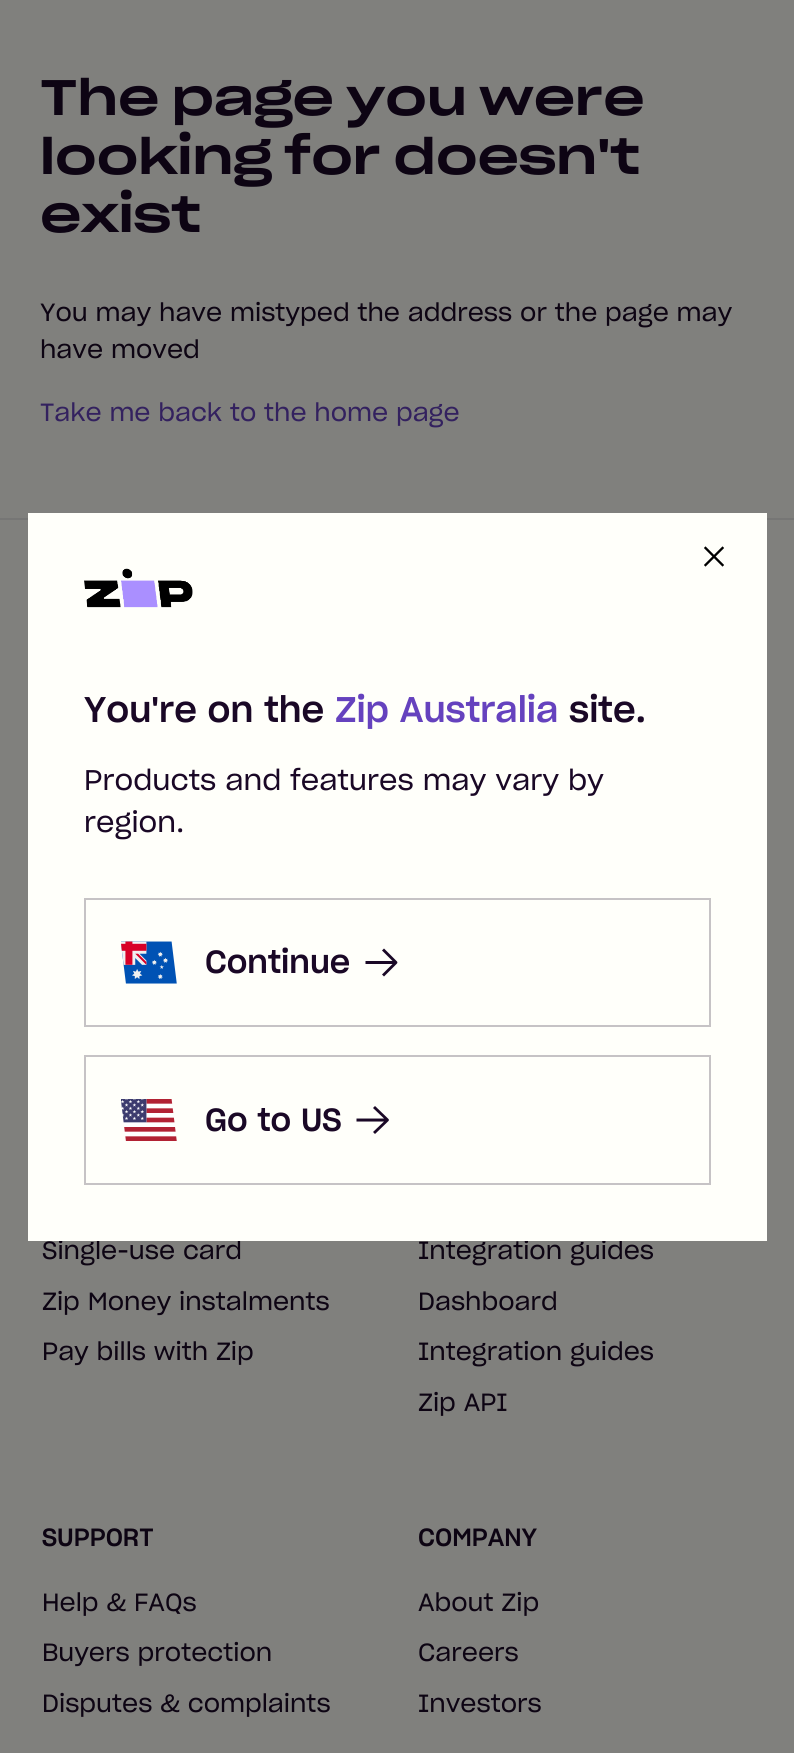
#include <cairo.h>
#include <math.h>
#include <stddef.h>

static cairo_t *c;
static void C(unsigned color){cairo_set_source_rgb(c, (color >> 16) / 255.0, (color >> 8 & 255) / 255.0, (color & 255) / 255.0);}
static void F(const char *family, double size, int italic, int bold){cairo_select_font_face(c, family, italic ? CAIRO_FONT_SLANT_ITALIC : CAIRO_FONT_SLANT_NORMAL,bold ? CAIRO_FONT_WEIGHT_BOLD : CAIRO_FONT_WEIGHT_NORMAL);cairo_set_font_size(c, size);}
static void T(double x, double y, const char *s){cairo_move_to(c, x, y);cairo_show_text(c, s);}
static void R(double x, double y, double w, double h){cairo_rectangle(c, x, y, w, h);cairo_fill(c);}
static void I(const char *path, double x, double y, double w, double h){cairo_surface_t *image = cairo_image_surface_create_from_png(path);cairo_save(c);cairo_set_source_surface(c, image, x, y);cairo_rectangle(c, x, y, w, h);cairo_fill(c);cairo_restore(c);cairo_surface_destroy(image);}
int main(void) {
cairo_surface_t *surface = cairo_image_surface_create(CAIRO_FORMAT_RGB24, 794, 1753);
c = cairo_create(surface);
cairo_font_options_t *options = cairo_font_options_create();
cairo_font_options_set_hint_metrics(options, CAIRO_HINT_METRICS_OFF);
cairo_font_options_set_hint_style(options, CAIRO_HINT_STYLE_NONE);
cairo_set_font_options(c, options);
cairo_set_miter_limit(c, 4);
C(0x80807d);
cairo_paint(c);
F("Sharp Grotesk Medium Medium",49,0,0);
C(0x0d0413);
T(40,115,"The page you were");
T(40,174,"looking for doesn't");
T(40,232,"exist");
F("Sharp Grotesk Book",24.5,0,0);
T(40,321,"You may have mistyped the address or the page may");
T(40,358,"have moved");
C(0x33215f);
T(40,421,"Take me back to the home page");
C(0x767675);
R(0,518,794,2);
C(0x0d0413);
T(42,1259,"Single-use card");
T(418,1259,"Integration guides");
C(0xfffffa);
R(28,513,739,728);
I("1.png",704,546,20,21);
I("2.png",84,568,109,40);
F("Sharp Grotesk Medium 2 Medium",35,0,0);
C(0x1a0826);
T(84,722,"You're on the");
C(0x6542be);
T(335,722,"Zip Australia");
C(0x1a0826);
T(569,722,"site.");
F("Sharp Grotesk Book",28,0,0);
T(84,790,"Products and features may vary by");
T(84,832,"region.");
cairo_rectangle(c,85,899,625,127);
C(0xc6c3c5);
cairo_stroke(c);
I("3.png",121,941,56,43);
F("Sharp Grotesk Medium 2 Medium",31.5,0,0);
C(0x1a0826);
T(205,973,"Continue");
cairo_set_fill_rule(c,CAIRO_FILL_RULE_EVEN_ODD);
cairo_new_path(c);
cairo_move_to(c,384,948.5);
cairo_line_to(c,397,961.5);
cairo_curve_to(c,397.5,962,397.5,963,397,963.5);
cairo_line_to(c,384,976.5);
cairo_line_to(c,382,974.5);
cairo_line_to(c,392.5,964);
cairo_line_to(c,365.5,964);
cairo_line_to(c,365.5,961);
cairo_line_to(c,392.5,961);
cairo_line_to(c,382,950.5);
cairo_close_path(c);
cairo_fill(c);
cairo_rectangle(c,85,1056,625,128);
C(0xc6c3c5);
cairo_stroke(c);
I("4.png",121,1099,56,42);
C(0x1a0826);
T(205,1131,"Go to US");
cairo_new_path(c);
cairo_move_to(c,375,1106);
cairo_line_to(c,388.5,1119);
cairo_curve_to(c,389,1119.5,389,1120.5,388.5,1121);
cairo_line_to(c,375,1134);
cairo_line_to(c,373,1132);
cairo_line_to(c,384,1121.5);
cairo_line_to(c,356.5,1121.5);
cairo_line_to(c,356.5,1118.5);
cairo_line_to(c,384,1118.5);
cairo_line_to(c,373,1108);
cairo_close_path(c);
cairo_fill(c);
F("Sharp Grotesk Book",24.5,0,0);
C(0x0d0413);
T(42,1310,"Zip Money instalments");
T(42,1360,"Pay bills with Zip");
T(418,1310,"Dashboard");
T(418,1360,"Integration guides");
T(418,1411,"Zip API");
F("Sharp Grotesk Medium 2 Medium",24.5,0,0);
T(42,1546,"SUPPORT");
F("Sharp Grotesk Book",24.5,0,0);
T(42,1611,"Help & FAQs");
T(42,1661,"Buyers protection");
T(42,1712,"Disputes & complaints");
F("Sharp Grotesk Medium 2 Medium",24.5,0,0);
T(418,1546,"COMPANY");
F("Sharp Grotesk Book",24.5,0,0);
T(418,1611,"About Zip");
T(418,1661,"Careers");
T(418,1712,"Investors");
cairo_surface_write_to_png(surface, "o.png");
cairo_font_options_destroy(options);
cairo_destroy(c);
cairo_surface_destroy(surface);
return 0;
}
